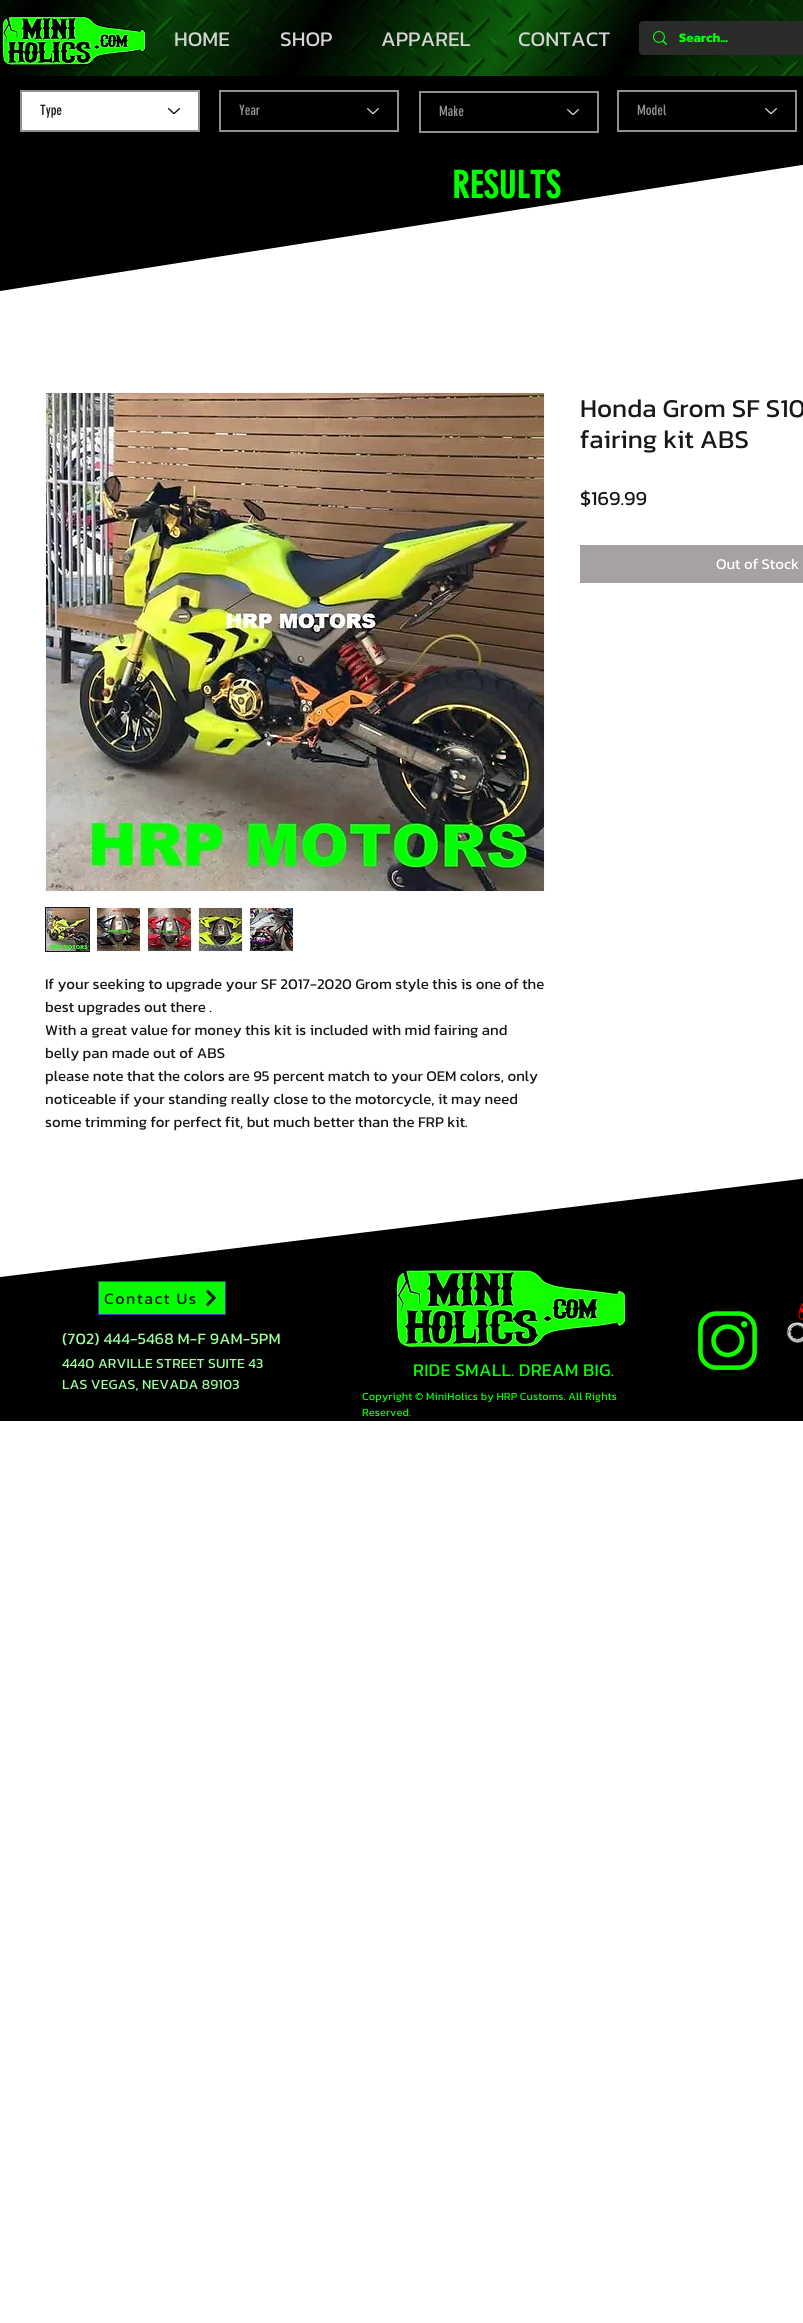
#include <cairo.h>
#include <math.h>
#include <stddef.h>

static cairo_t *c;
static void C(unsigned color){cairo_set_source_rgb(c, (color >> 16) / 255.0, (color >> 8 & 255) / 255.0, (color & 255) / 255.0);}
static void F(const char *family, double size, int italic, int bold){cairo_select_font_face(c, family, italic ? CAIRO_FONT_SLANT_ITALIC : CAIRO_FONT_SLANT_NORMAL,bold ? CAIRO_FONT_WEIGHT_BOLD : CAIRO_FONT_WEIGHT_NORMAL);cairo_set_font_size(c, size);}
static void T(double x, double y, const char *s){cairo_move_to(c, x, y);cairo_show_text(c, s);}
static void L(double x, double y, const char *s, double letter, double word){cairo_move_to(c, x, y);while (*s) {char ch[5] = {0};int n = 0;do ch[n++] = *s++; while ((*s & 0xC0) == 0x80);cairo_show_text(c, ch);cairo_rel_move_to(c, letter + word * (*ch == ' '), 0);}}
static void R(double x, double y, double w, double h){cairo_rectangle(c, x, y, w, h);cairo_fill(c);}
static void Q(double x, double y, double w, double h, double r){cairo_new_sub_path(c);cairo_arc(c, x + w - r, y + h - r, r, 0, M_PI / 2);cairo_arc(c, x + r, y + h - r, r, M_PI / 2, M_PI);cairo_arc(c, x + r, y + r, r, M_PI, 1.5 * M_PI);cairo_arc(c, x + w - r, y + r, r, 1.5 * M_PI, 2 * M_PI);cairo_close_path(c);}
static void I(const char *path, double x, double y, double w, double h){cairo_surface_t *image = cairo_image_surface_create_from_png(path);cairo_save(c);cairo_set_source_surface(c, image, x, y);cairo_rectangle(c, x, y, w, h);cairo_fill(c);cairo_restore(c);cairo_surface_destroy(image);}
int main(void) {
cairo_surface_t *surface = cairo_image_surface_create(CAIRO_FORMAT_RGB24, 803, 2323);
c = cairo_create(surface);
cairo_font_options_t *options = cairo_font_options_create();
cairo_font_options_set_hint_metrics(options, CAIRO_HINT_METRICS_OFF);
cairo_font_options_set_hint_style(options, CAIRO_HINT_STYLE_NONE);
cairo_set_font_options(c, options);
cairo_set_miter_limit(c, 4);
C(0xffffff);
cairo_paint(c);
I("1.png",0,0,803,76);
I("2.png",2,16,145,50);
F("Kanit",21,0,0);
C(0xd4d4d4);
T(174,46,"HOME");
T(280,46,"SHOP");
T(381,46,"APPAREL");
T(518,46,"CONTACT");
C(0x2b2b2b);
Q(639,21,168,34,4);
cairo_fill(c);
I("3.png",653,31,14,14);
F("Kanit",13,0,1);
C(0x03ff02);
T(679,42,"Search...");
C(0x000000);
R(0,76,803,215);
C(0xffffff);
cairo_rectangle(c,21,91,178,40);
cairo_fill_preserve(c);
C(0x919191);
cairo_stroke(c);
F("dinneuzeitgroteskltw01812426",14,0,0);
C(0x181818);
T(40,115,"Type");
I("4.png",168,108,12,6);
cairo_rectangle(c,220,91,178,40);
C(0x8f8f8f);
cairo_stroke(c);
C(0x949494);
T(239,115,"Year");
I("5.png",367,108,12,6);
cairo_rectangle(c,420,92,178,40);
C(0x8f8f8f);
cairo_stroke(c);
C(0x949494);
T(439,116,"Make");
I("5.png",567,109,12,6);
cairo_rectangle(c,618,91,178,40);
C(0x8f8f8f);
cairo_stroke(c);
C(0x949494);
T(637,115,"Model");
I("5.png",765,108,12,6);
C(0xffffff);
cairo_new_path(c);
cairo_move_to(c,0,291);
cairo_line_to(c,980,137);
cairo_line_to(c,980,291);
cairo_close_path(c);
cairo_fill(c);
F("dinneuzeitgroteskltw01812426",37,0,1);
C(0x03ff02);
L(452,198,"RESULTS",.5,0);
F("Kanit",26,0,0);
C(0x181818);
T(580,417,"Honda Grom SF S10");
T(580,448,"fairing kit ABS");
F("Kanit",20,0,0);
T(580,505,"$169.99");
C(0xa6a2a2);
R(580,545,223,38);
F("Kanit",15,0,0);
C(0xffffff);
T(716,569,"Out of Stock");
cairo_rectangle(c,45.5,392.5,499,499);
C(0xfafafa);
cairo_set_line_width(c,1);
cairo_stroke(c);
I("6.png",46,393,498,498);
cairo_rectangle(c,45.5,907.5,44,44);
C(0x181818);
cairo_stroke(c);
I("7.png",46,908,43,43);
C(0xfafafa);
R(96,907,45,45);
I("8.png",97,908,43,43);
R(147,907,45,45);
I("9.png",148,908,43,43);
R(198,907,45,45);
I("10.png",199,908,43,43);
R(249,907,45,45);
I("11.png",250,908,43,43);
C(0x181818);
T(45,989,"If your seeking to upgrade your SF 2017-2020 Grom style this is one of the");
T(45,1012,"best upgrades out there .");
T(45,1035,"With a great value for money this kit is included with mid fairing and");
T(45,1058,"belly pan made out of ABS");
T(45,1081,"please note that the colors are 95 percent match to your OEM colors, only");
T(45,1104,"noticeable if your standing really close to the motorcycle, it may need");
T(45,1127,"some trimming for perfect fit, but much better than the FRP kit.");
C(0x000000);
cairo_new_path(c);
cairo_move_to(c,0,1277);
cairo_line_to(c,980,1157);
cairo_line_to(c,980,1277);
cairo_close_path(c);
cairo_fill(c);
R(0,1277,803,144);
C(0x03ff02);
cairo_rectangle(c,98.5,1281.5,127,33);
cairo_fill_preserve(c);
C(0x3e40b3);
cairo_stroke(c);
F("Kanit",16,0,0);
C(0x181818);
L(104,1304,"Contact Us",1.6,0);
I("12.png",206,1289,10,18);
I("13.png",395,1268,231,81);
C(0x9dff98);
L(62,1344,"(702) 444-5468 M-F 9AM-5PM",.15,0);
I("14.png",698,1311,60,59);
I("15.png",786,1303,17,40);
F("Kanit",14,0,0);
L(62,1368,"4440 ARVILLE STREET SUITE 43",.15,0);
L(62,1389,"LAS VEGAS, NEVADA 89103",.15,0);
F("Kanit",18,0,0);
C(0x03ff02);
L(413,1376,"RIDE SMALL. DREAM BIG.",.2,0);
F("Kanit",11,0,0);
L(362,1400,"Copyright © MiniHolics by HRP Customs. All Rights",.1,0);
L(362,1416,"Reserved.",.1,0);
cairo_surface_write_to_png(surface, "o.png");
cairo_font_options_destroy(options);
cairo_destroy(c);
cairo_surface_destroy(surface);
return 0;
}
